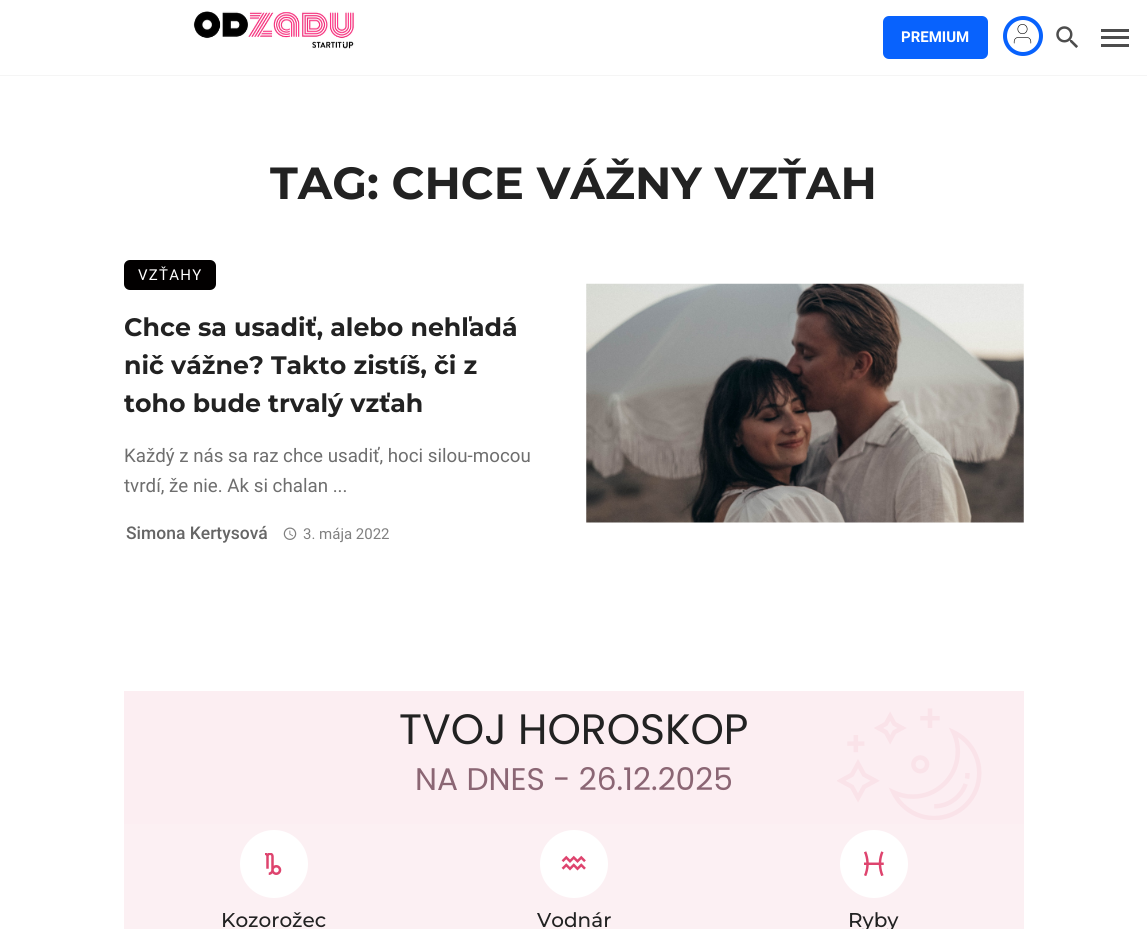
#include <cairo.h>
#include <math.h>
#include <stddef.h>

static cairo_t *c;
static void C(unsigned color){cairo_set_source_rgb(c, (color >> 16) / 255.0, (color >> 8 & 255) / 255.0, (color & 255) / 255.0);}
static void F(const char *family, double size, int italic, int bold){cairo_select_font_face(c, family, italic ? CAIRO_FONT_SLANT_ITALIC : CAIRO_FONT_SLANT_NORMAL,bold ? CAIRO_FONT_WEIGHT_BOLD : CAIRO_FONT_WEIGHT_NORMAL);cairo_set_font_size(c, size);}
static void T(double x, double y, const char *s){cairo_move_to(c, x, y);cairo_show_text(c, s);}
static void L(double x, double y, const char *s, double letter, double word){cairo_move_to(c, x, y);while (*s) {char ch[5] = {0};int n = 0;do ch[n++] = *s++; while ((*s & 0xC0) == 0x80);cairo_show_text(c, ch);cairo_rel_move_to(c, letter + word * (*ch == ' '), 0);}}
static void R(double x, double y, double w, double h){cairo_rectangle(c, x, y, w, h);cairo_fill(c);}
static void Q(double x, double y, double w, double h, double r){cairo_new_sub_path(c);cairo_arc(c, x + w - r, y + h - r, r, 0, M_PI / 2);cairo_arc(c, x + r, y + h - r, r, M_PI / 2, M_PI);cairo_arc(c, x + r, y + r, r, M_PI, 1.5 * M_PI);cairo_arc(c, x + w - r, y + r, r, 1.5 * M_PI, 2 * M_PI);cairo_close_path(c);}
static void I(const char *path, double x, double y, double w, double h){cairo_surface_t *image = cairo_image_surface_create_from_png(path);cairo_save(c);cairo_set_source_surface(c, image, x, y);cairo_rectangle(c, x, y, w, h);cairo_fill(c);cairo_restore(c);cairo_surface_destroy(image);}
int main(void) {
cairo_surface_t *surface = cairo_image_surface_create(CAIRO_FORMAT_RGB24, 1147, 929);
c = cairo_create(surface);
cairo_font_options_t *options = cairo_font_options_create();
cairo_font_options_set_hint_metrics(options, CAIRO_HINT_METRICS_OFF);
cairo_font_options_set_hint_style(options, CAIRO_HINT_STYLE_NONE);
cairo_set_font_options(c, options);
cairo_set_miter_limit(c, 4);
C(0xffffff);
cairo_paint(c);
C(0xf5f5f5);
cairo_new_path(c);
cairo_move_to(c,0,75);
cairo_line_to(c,0,76);
cairo_line_to(c,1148,76);
cairo_line_to(c,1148,1);
cairo_line_to(c,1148,75);
cairo_close_path(c);
cairo_fill(c);
I("1.png",193,11,162,38);
C(0x0862fd);
Q(883,16,105,43,6);
cairo_fill(c);
F("Roboto",15,0,1);
C(0xffffff);
T(901,42,"PREMIUM");
cairo_new_path(c);
cairo_arc(c,1023,36,18,0,2 * M_PI);
C(0x0862fd);
cairo_set_line_width(c,4);
cairo_stroke(c);
I("2.png",1013,24,19,20);
I("3.png",1056,26,22,22);
C(0x4d4d4d);
R(1101,36,28,3);
R(1101,29,28,3);
R(1101,44,28,3);
F("Montserrat Thin",45,0,0);
C(0x222222);
T(270,199,"TAG: CHCE VÁŽNY VZŤAH");
C(0x020000);
Q(124,260,92,30,6);
cairo_fill(c);
F("Roboto",15,0,0);
C(0xffffff);
L(138,280,"VZŤAHY",1.25,0);
F("Montserrat Thin",25.25,0,0);
C(0x222222);
T(124,336,"Chce sa usadiť, alebo nehľadá");
T(124,374,"nič vážne? Takto zistíš, či z");
T(124,412,"toho bude trvalý vzťah");
F("Roboto",18.75,0,0);
C(0x6e6e6e);
T(124,462,"Každý z nás sa raz chce usadiť, hoci silou-mocou");
T(124,492,"tvrdí, že nie. Ak si chalan ...");
F("Roboto Medium",17.5,0,0);
C(0x666666);
T(126,539,"Simona Kertysová");
I("4.png",283,527,14,13);
F("Roboto",15,0,0);
C(0x808080);
T(303,539,"3. mája 2022");
I("5.png",586,283,438,240);
C(0xfceef2);
R(124,691,900,133);
F("Poppins",42.5,0,0);
C(0x222222);
T(399,744,"TVOJ HOROSKOP");
F("Poppins",31.25,0,0);
C(0x8b6674);
T(415,790,"NA DNES - 26.12.2025");
I("6.png",837,708,145,112);
C(0xfcf0f3);
R(124,824,900,105);
C(0xffffff);
cairo_arc(c,274,864,34,0,2 * M_PI);
cairo_fill(c);
I("7.png",265,853,17,22);
F("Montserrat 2 Thin",20,0,0);
C(0x222222);
T(221,927,"Kozorožec");
C(0xffffff);
cairo_new_path(c);
cairo_arc(c,574,864,34,0,2 * M_PI);
cairo_fill(c);
I("8.png",561,855,25,16);
C(0x222222);
T(537,927,"Vodnár");
C(0xffffff);
cairo_new_path(c);
cairo_arc(c,874,864,34,0,2 * M_PI);
cairo_fill(c);
I("9.png",864,851,20,25);
C(0x222222);
T(848,927,"Ryby");
cairo_surface_write_to_png(surface, "o.png");
cairo_font_options_destroy(options);
cairo_destroy(c);
cairo_surface_destroy(surface);
return 0;
}
